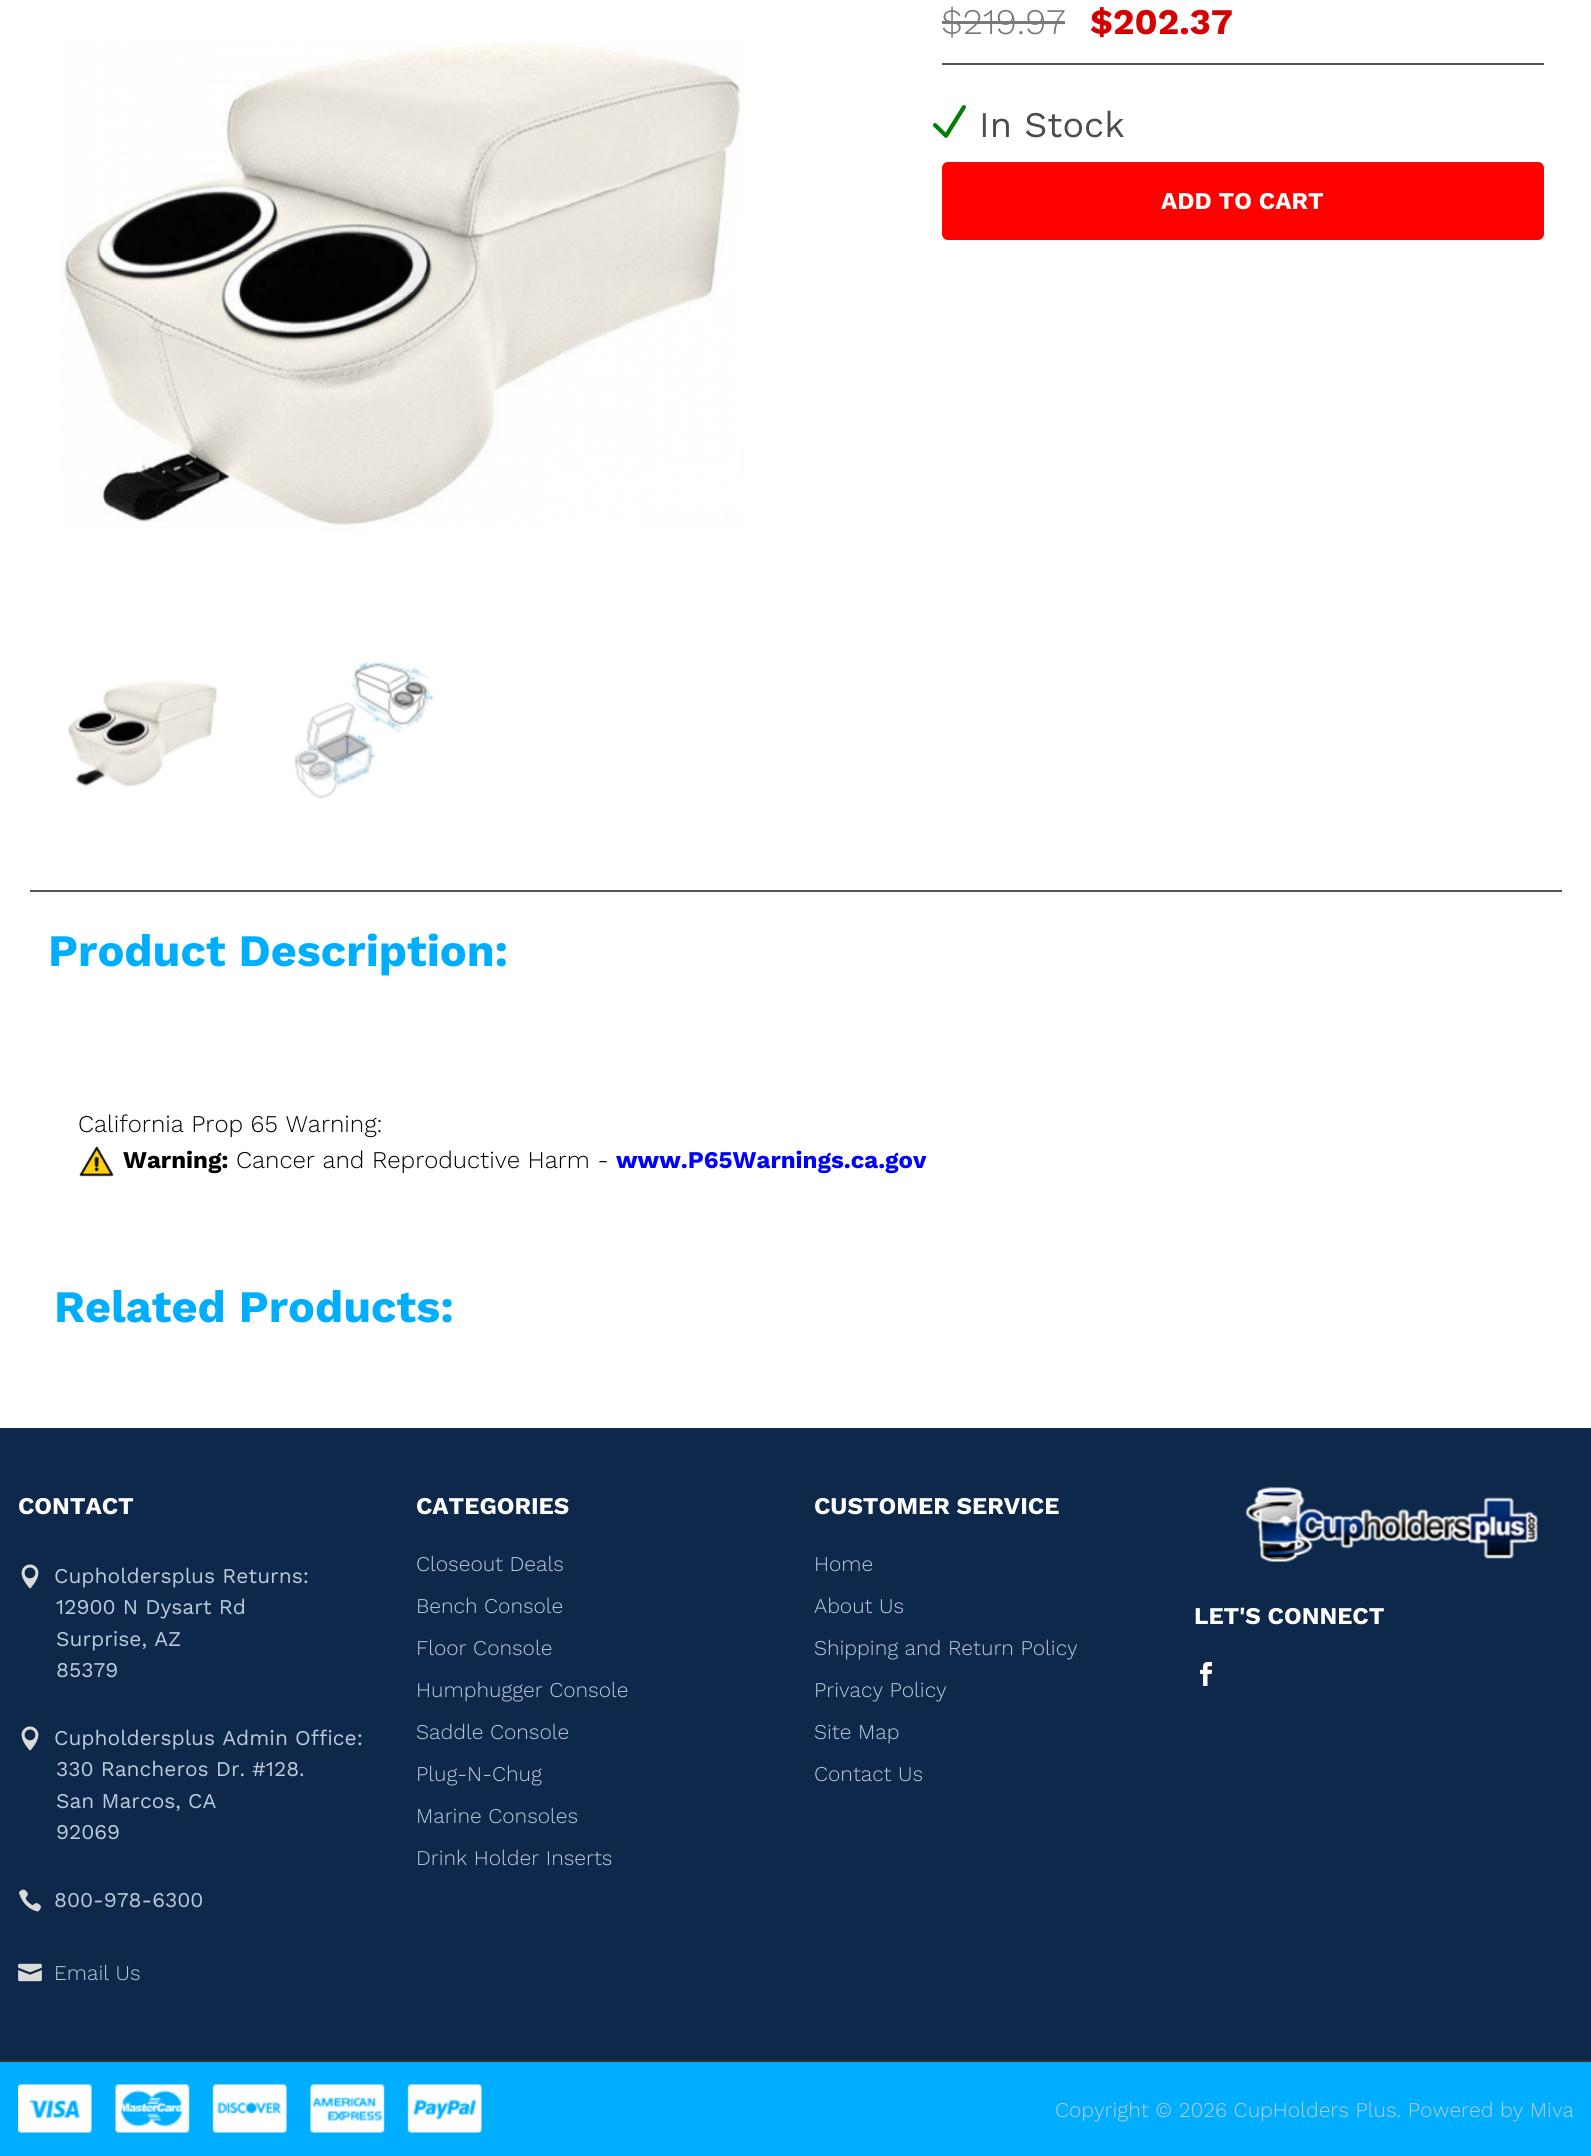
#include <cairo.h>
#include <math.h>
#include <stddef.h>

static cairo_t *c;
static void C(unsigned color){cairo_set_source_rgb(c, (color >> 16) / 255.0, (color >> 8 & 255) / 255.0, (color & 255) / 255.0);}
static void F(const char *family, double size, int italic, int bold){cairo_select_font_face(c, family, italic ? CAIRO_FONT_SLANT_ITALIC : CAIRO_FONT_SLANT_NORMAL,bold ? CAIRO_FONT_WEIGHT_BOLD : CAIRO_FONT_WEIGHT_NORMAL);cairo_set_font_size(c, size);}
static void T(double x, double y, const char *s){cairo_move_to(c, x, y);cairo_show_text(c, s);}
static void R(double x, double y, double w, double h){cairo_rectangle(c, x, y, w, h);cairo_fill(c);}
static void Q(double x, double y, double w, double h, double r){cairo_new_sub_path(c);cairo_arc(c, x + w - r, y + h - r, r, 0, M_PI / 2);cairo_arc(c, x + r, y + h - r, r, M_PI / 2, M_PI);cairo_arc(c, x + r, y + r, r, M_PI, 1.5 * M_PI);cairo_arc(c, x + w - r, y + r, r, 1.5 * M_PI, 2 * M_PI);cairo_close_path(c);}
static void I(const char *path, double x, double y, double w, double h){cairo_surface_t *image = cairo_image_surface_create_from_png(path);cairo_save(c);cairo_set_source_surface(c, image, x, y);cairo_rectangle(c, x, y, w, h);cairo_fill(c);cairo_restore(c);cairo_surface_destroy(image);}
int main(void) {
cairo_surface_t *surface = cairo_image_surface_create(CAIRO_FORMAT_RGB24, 1591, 2156);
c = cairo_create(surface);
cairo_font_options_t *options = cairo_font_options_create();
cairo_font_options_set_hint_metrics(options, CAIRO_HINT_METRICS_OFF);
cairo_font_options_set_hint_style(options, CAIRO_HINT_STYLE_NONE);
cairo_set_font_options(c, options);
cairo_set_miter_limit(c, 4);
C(0xffffff);
cairo_paint(c);
I("1.png",60,41,684,490);
I("2.png",67,679,151,108);
I("3.png",294,661,141,138);
F("Work Sans Light",36,0,0);
C(0x797979);
T(941,34,"$219.97");
R(942,21,123,3);
F("Work Sans",36,0,1);
C(0xd70000);
T(1090,34,"$202.37");
C(0x555555);
R(942,63,602,2);
I("4.png",933,105,33,33);
F("Work Sans",36,0,0);
C(0x4c4c4c);
T(979,137,"In Stock");
C(0xff0000);
Q(942,162,602,78,6);
cairo_fill(c);
F("Work Sans",24,0,1);
C(0xffffff);
T(1161,209,"ADD TO CART");
C(0x555555);
R(30,890,1532,2);
F("Work Sans",45,0,1);
C(0x00aeff);
T(48,966,"Product Description:");
F("Work Sans Light",24,0,0);
C(0x000000);
T(78,1132,"California Prop 65 Warning:");
I("5.png",79,1146,35,31);
F("Work Sans",24,0,1);
T(123,1168,"Warning:");
F("Work Sans Light",24,0,0);
T(236,1168,"Cancer and Reproductive Harm -");
F("Work Sans",24,0,1);
C(0x0000ff);
T(616,1168,"www.P65Warnings.ca.gov");
F("Work Sans",45,0,1);
C(0x00aeff);
T(54,1322,"Related Products:");
C(0x0e284b);
R(0,1428,1591,632);
F("Work Sans",24,0,1);
C(0xffffff);
T(18,1514,"CONTACT");
I("6.png",21,1564,18,25);
F("Work Sans",21,0,0);
C(0xbccbda);
T(54,1583,"Cupholdersplus Returns:");
T(56,1614,"12900 N Dysart Rd");
T(56,1646,"Surprise, AZ");
T(56,1677,"85379");
I("6.png",21,1726,18,25);
T(54,1745,"Cupholdersplus Admin Office:");
T(56,1776,"330 Rancheros Dr. #128.");
T(56,1808,"San Marcos, CA");
T(56,1839,"92069");
I("7.png",19,1889,22,23);
T(54,1907,"800-978-6300");
I("8.png",18,1963,24,19);
F("Work Sans Light",21,0,0);
T(54,1980,"Email Us");
F("Work Sans",24,0,1);
C(0xffffff);
T(416,1514,"CATEGORIES");
F("Work Sans Light",21,0,0);
C(0xbccbda);
T(416,1571,"Closeout Deals");
T(416,1613,"Bench Console");
T(416,1655,"Floor Console");
T(416,1697,"Humphugger Console");
T(416,1739,"Saddle Console");
T(416,1781,"Plug-N-Chug");
T(416,1823,"Marine Consoles");
T(416,1865,"Drink Holder Inserts");
F("Work Sans",24,0,1);
C(0xffffff);
T(814,1514,"CUSTOMER SERVICE");
F("Work Sans Light",21,0,0);
C(0xbccbda);
T(814,1571,"Home");
T(814,1613,"About Us");
T(814,1655,"Shipping and Return Policy");
T(814,1697,"Privacy Policy");
T(814,1739,"Site Map");
T(814,1781,"Contact Us");
I("9.png",1245,1487,293,75);
F("Work Sans",24,0,1);
C(0xffffff);
T(1194,1624,"LET'S CONNECT");
I("10.png",1200,1662,13,24);
C(0x00aeff);
R(0,2062,1591,94);
C(0x333333);
R(0,2060,1591,2);
I("11.png",18,2084,464,49);
F("Work Sans Light",21,0,0);
C(0xbccbda);
T(1055,2117,"Copyright © 2026 CupHolders Plus. Powered by Miva");
cairo_surface_write_to_png(surface, "o.png");
cairo_font_options_destroy(options);
cairo_destroy(c);
cairo_surface_destroy(surface);
return 0;
}
